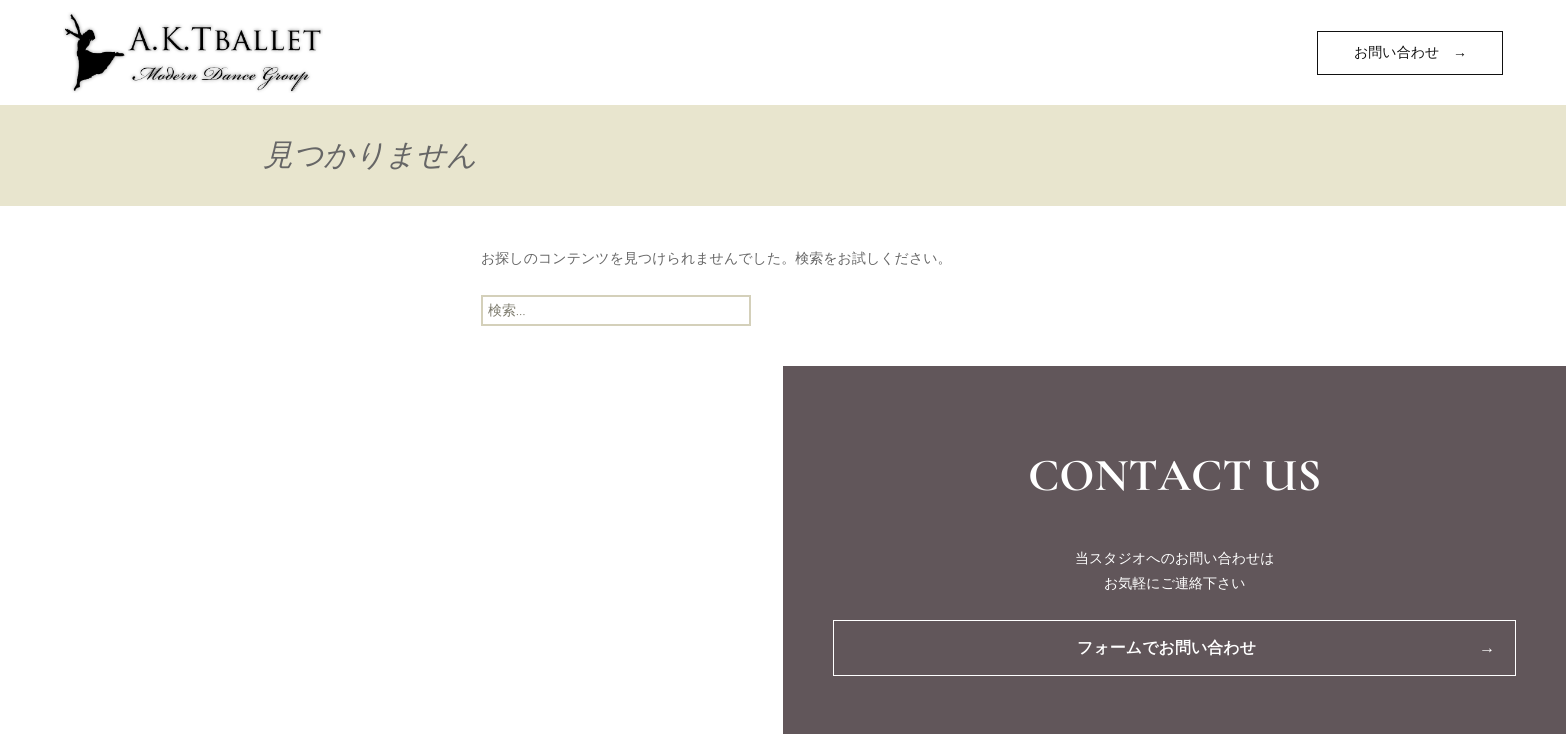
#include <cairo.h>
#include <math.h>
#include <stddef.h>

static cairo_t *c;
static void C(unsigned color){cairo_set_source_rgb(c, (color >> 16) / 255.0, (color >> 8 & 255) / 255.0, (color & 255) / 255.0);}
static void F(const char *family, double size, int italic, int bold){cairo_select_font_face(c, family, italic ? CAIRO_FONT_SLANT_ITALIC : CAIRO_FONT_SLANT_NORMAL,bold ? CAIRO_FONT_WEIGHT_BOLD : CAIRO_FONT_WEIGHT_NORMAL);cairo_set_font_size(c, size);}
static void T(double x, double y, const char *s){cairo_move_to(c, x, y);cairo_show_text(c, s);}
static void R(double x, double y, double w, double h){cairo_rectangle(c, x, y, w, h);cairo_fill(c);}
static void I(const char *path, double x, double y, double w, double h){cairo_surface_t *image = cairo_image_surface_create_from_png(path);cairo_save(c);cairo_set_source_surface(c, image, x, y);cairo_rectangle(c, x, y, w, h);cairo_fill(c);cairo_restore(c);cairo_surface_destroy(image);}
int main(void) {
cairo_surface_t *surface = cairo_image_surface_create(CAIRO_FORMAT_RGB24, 1566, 734);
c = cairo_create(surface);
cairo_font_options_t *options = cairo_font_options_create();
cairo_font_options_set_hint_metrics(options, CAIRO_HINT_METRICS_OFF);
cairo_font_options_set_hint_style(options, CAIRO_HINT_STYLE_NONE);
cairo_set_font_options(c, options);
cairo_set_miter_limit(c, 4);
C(0xffffff);
cairo_paint(c);
I("1.png",63,12,260,81);
cairo_rectangle(c,1317.5,31.5,185,43);
C(0x111111);
cairo_set_line_width(c,1);
cairo_stroke(c);
F("WenQuanYi Zen Hei Medium",14,0,0);
T(1354,57,"お問い合わせ");
F("Liberation Serif",14,0,0);
T(1453,57,"→");
C(0xe8e5ce);
R(0,105,1566,101);
F("WenQuanYi Zen Hei Medium",30,1,0);
C(0x666666);
T(263,165,"見つかりません");
F("WenQuanYi Zen Hei Medium",14,0,0);
T(481,263,"お探しのコンテンツを見つけられませんでした。検索をお試しください。");
cairo_rectangle(c,482,296,268,29);
C(0xd4d0ba);
cairo_set_line_width(c,2);
cairo_stroke(c);
C(0x7d7b6d);
T(488,315,"検索");
F("Cormorant Infant",14,0,0);
T(516,315,"…");
C(0x61565a);
R(783,366,783,368);
F("Cormorant Infant",46,0,1);
C(0xffffff);
T(1028,490,"CONTACT US");
F("WenQuanYi Zen Hei Medium",14,0,0);
T(1075,563,"当スタジオへのお問い合わせは");
T(1104,588,"お気軽にご連絡下さい");
cairo_rectangle(c,833.5,620.5,682,55);
cairo_set_line_width(c,1);
cairo_stroke(c);
F("WenQuanYi Zen Hei",16,0,1);
T(1077,653,"フォームでお問い合わせ");
F("Liberation Serif",16,0,1);
T(1479,653,"→");
cairo_surface_write_to_png(surface, "o.png");
cairo_font_options_destroy(options);
cairo_destroy(c);
cairo_surface_destroy(surface);
return 0;
}
